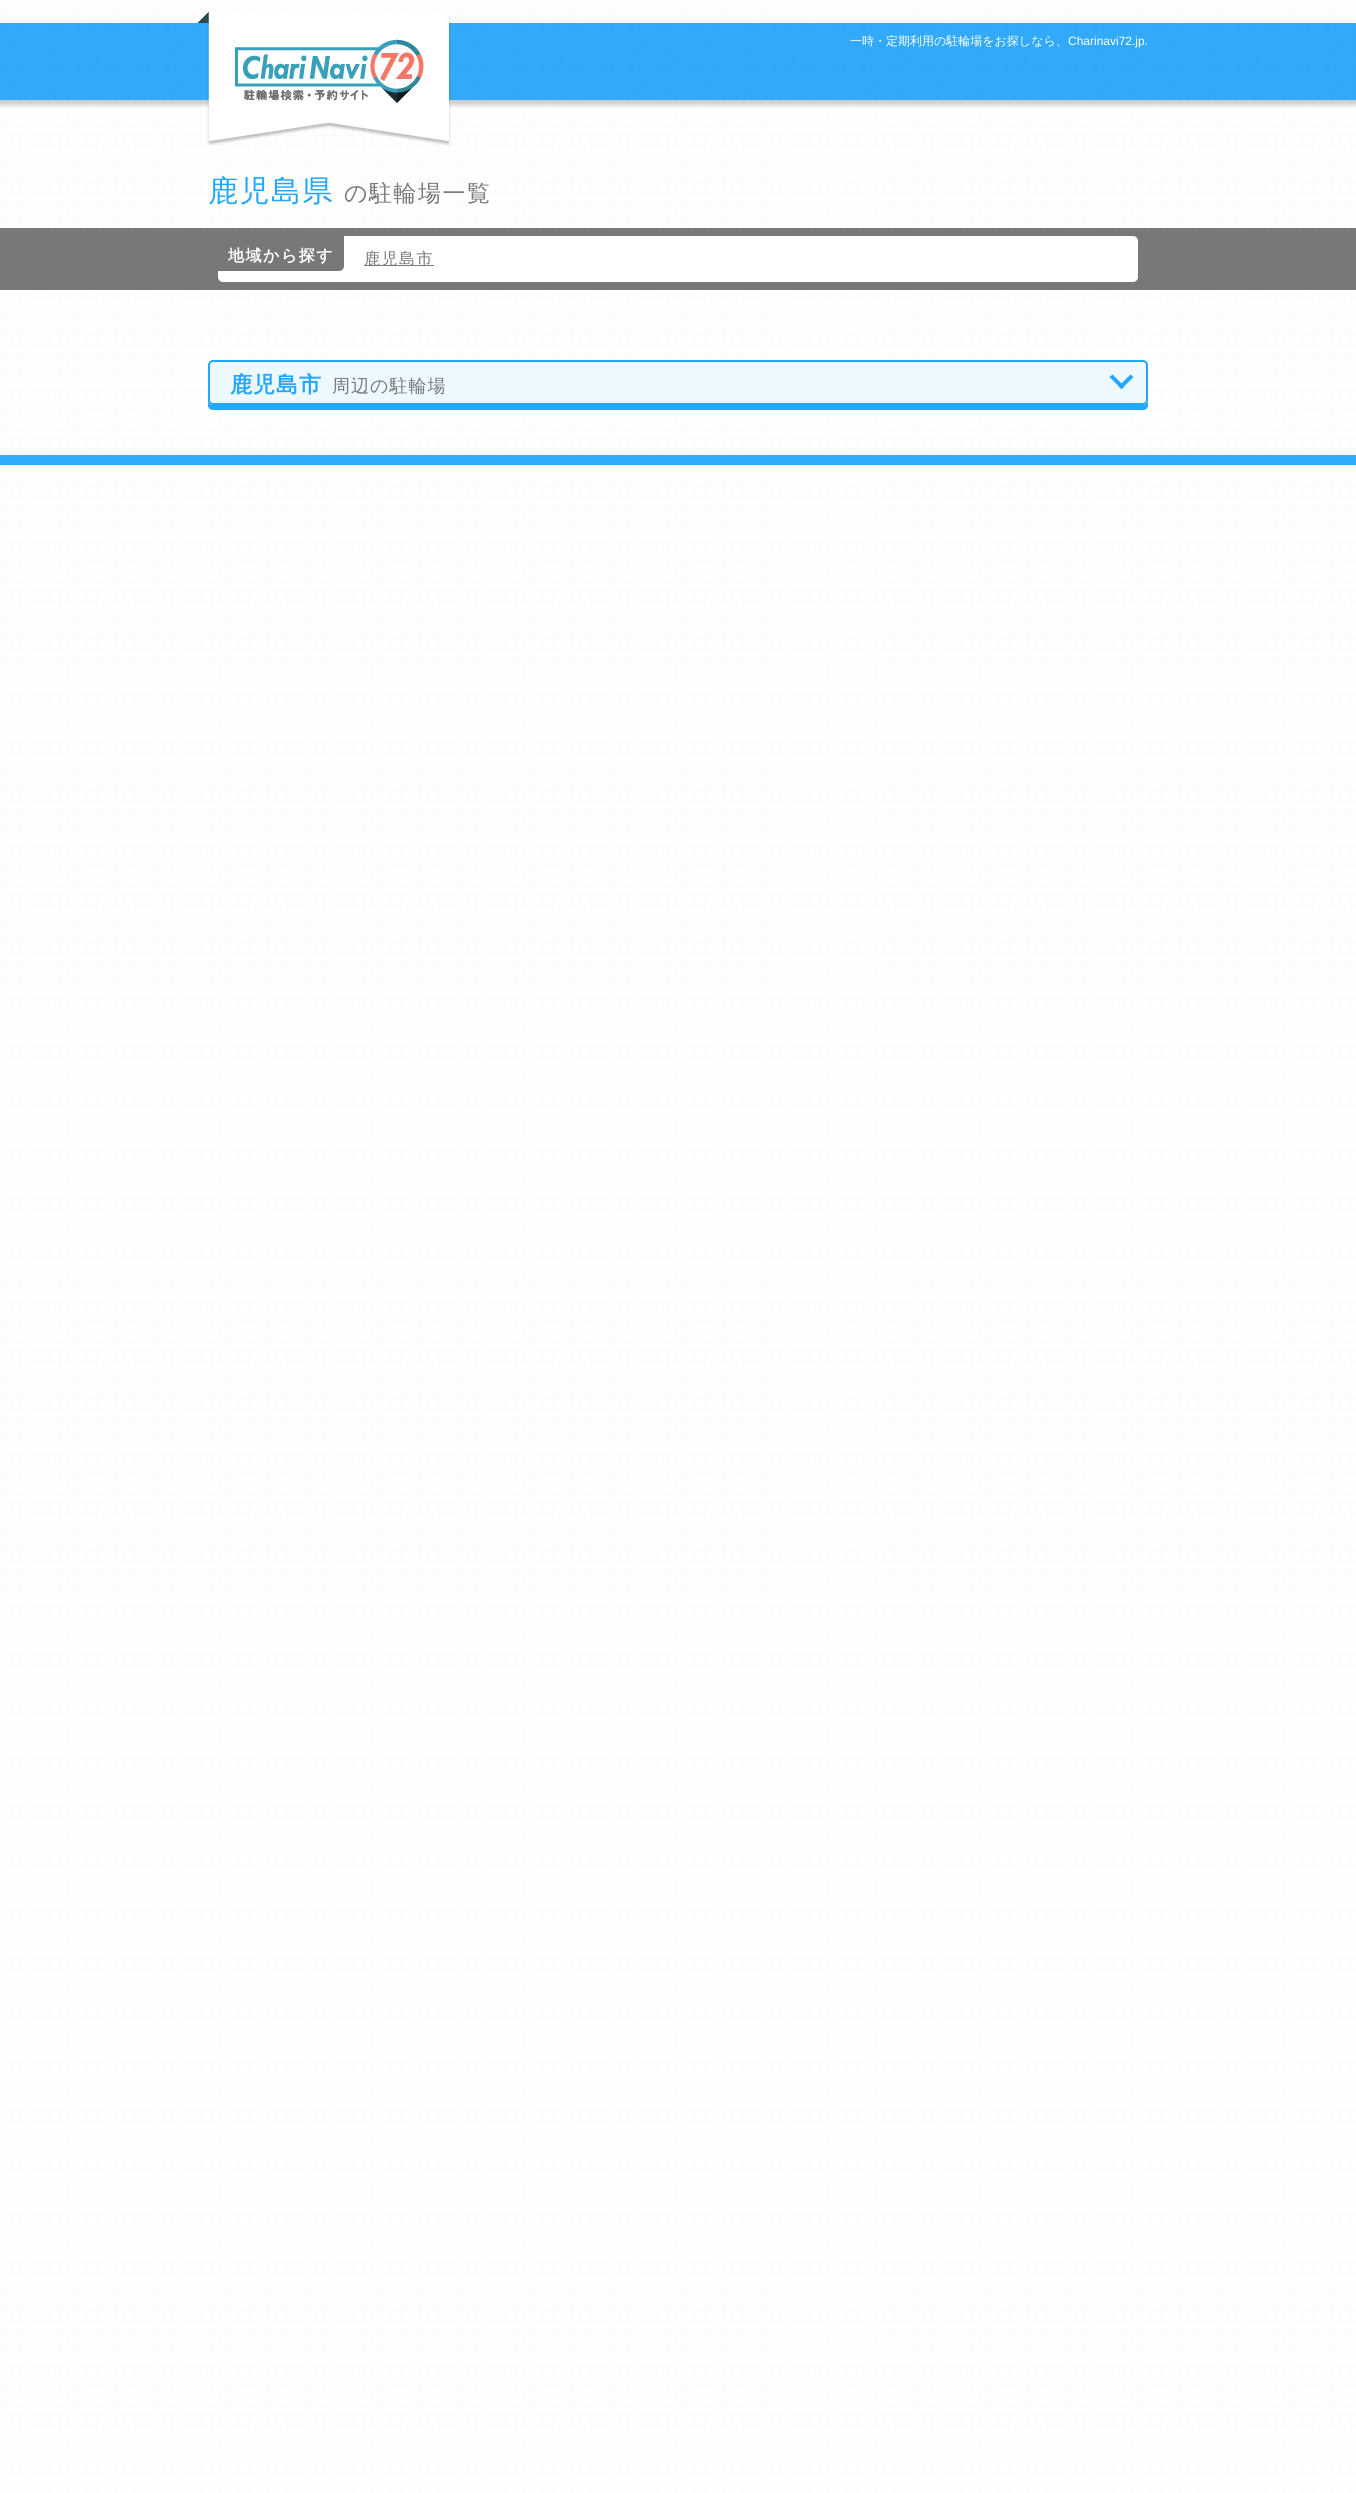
#include <cairo.h>
#include <math.h>
#include <stddef.h>

static cairo_t *c;
static void C(unsigned color){cairo_set_source_rgb(c, (color >> 16) / 255.0, (color >> 8 & 255) / 255.0, (color & 255) / 255.0);}
static void F(const char *family, double size, int italic, int bold){cairo_select_font_face(c, family, italic ? CAIRO_FONT_SLANT_ITALIC : CAIRO_FONT_SLANT_NORMAL,bold ? CAIRO_FONT_WEIGHT_BOLD : CAIRO_FONT_WEIGHT_NORMAL);cairo_set_font_size(c, size);}
static void T(double x, double y, const char *s){cairo_move_to(c, x, y);cairo_show_text(c, s);}
static void L(double x, double y, const char *s, double letter, double word){cairo_move_to(c, x, y);while (*s) {char ch[5] = {0};int n = 0;do ch[n++] = *s++; while ((*s & 0xC0) == 0x80);cairo_show_text(c, ch);cairo_rel_move_to(c, letter + word * (*ch == ' '), 0);}}
static void R(double x, double y, double w, double h){cairo_rectangle(c, x, y, w, h);cairo_fill(c);}
static void Q(double x, double y, double w, double h, double r){cairo_new_sub_path(c);cairo_arc(c, x + w - r, y + h - r, r, 0, M_PI / 2);cairo_arc(c, x + r, y + h - r, r, M_PI / 2, M_PI);cairo_arc(c, x + r, y + r, r, M_PI, 1.5 * M_PI);cairo_arc(c, x + w - r, y + r, r, 1.5 * M_PI, 2 * M_PI);cairo_close_path(c);}
static void I(const char *path, double x, double y, double w, double h){cairo_surface_t *image = cairo_image_surface_create_from_png(path);cairo_save(c);cairo_set_source_surface(c, image, x, y);cairo_rectangle(c, x, y, w, h);cairo_fill(c);cairo_restore(c);cairo_surface_destroy(image);}
int main(void) {
cairo_surface_t *surface = cairo_image_surface_create(CAIRO_FORMAT_RGB24, 1356, 2493);
c = cairo_create(surface);
cairo_font_options_t *options = cairo_font_options_create();
cairo_font_options_set_hint_metrics(options, CAIRO_HINT_METRICS_OFF);
cairo_font_options_set_hint_style(options, CAIRO_HINT_STYLE_NONE);
cairo_set_font_options(c, options);
cairo_set_miter_limit(c, 4);
C(0xffffff);
cairo_paint(c);
I("1.png",0,2,1356,2490);
I("2.png",0,23,1356,85);
I("3.png",198,12,253,134);
F("WenQuanYi Zen Hei Medium",12,0,0);
C(0xffffff);
T(850,45,"一時・定期利用の駐輪場をお探しなら、");
F("Liberation Sans",12,0,0);
T(1068,45,"Charinavi72.jp.");
C(0x31aaf9);
R(0,455,1356,10);
F("WenQuanYi Zen Hei Medium",30,0,0);
C(0x21a7ff);
L(208,201,"鹿児島県",1.5,0);
F("WenQuanYi Zen Hei Medium",23,0,0);
C(0x787878);
L(344,201,"の駐輪場一覧",1.5,0);
R(0,228,1356,62);
C(0xffffff);
Q(218,236,920,46,5);
cairo_fill(c);
C(0x787878);
Q(208,228,136,43,5);
cairo_fill(c);
F("WenQuanYi Zen Hei",16,0,1);
C(0xffffff);
L(228,261,"地域から探す",1.5,0);
C(0x787878);
R(364,265,70,1);
F("WenQuanYi Zen Hei Medium",16,0,0);
L(364,264,"鹿児島市",1.5,0);
C(0x21a7ff);
cairo_new_path(c);
cairo_move_to(c,208,400);
cairo_line_to(c,208,405);
cairo_curve_to(c,208,408,210,410,213,410);
cairo_line_to(c,1143,410);
cairo_curve_to(c,1146,410,1148,408,1148,405);
cairo_line_to(c,1148,400);
cairo_curve_to(c,1148,403,1146,405,1143,405);
cairo_line_to(c,213,405);
cairo_curve_to(c,210,405,208,403,208,400);
cairo_close_path(c);
cairo_fill(c);
C(0xedf8ff);
Q(209,361,938,43,4);
cairo_fill_preserve(c);
C(0x21a7ff);
cairo_stroke(c);
F("WenQuanYi Zen Hei",22,0,1);
L(230,392,"鹿児島市",1,0);
F("WenQuanYi Zen Hei Medium",18,0,0);
C(0x787878);
L(332,392,"周辺の駐輪場",1,0);
C(0x21a7ff);
cairo_new_path(c);
cairo_move_to(c,1133.5,377);
cairo_line_to(c,1121.5,389);
cairo_line_to(c,1118.5,386.5);
cairo_line_to(c,1130.5,374.5);
cairo_close_path(c);
cairo_fill(c);
cairo_new_path(c);
cairo_move_to(c,1124.5,386.5);
cairo_line_to(c,1121.5,389);
cairo_line_to(c,1109.5,377);
cairo_line_to(c,1112.5,374.5);
cairo_close_path(c);
cairo_fill(c);
cairo_surface_write_to_png(surface, "o.png");
cairo_font_options_destroy(options);
cairo_destroy(c);
cairo_surface_destroy(surface);
return 0;
}
